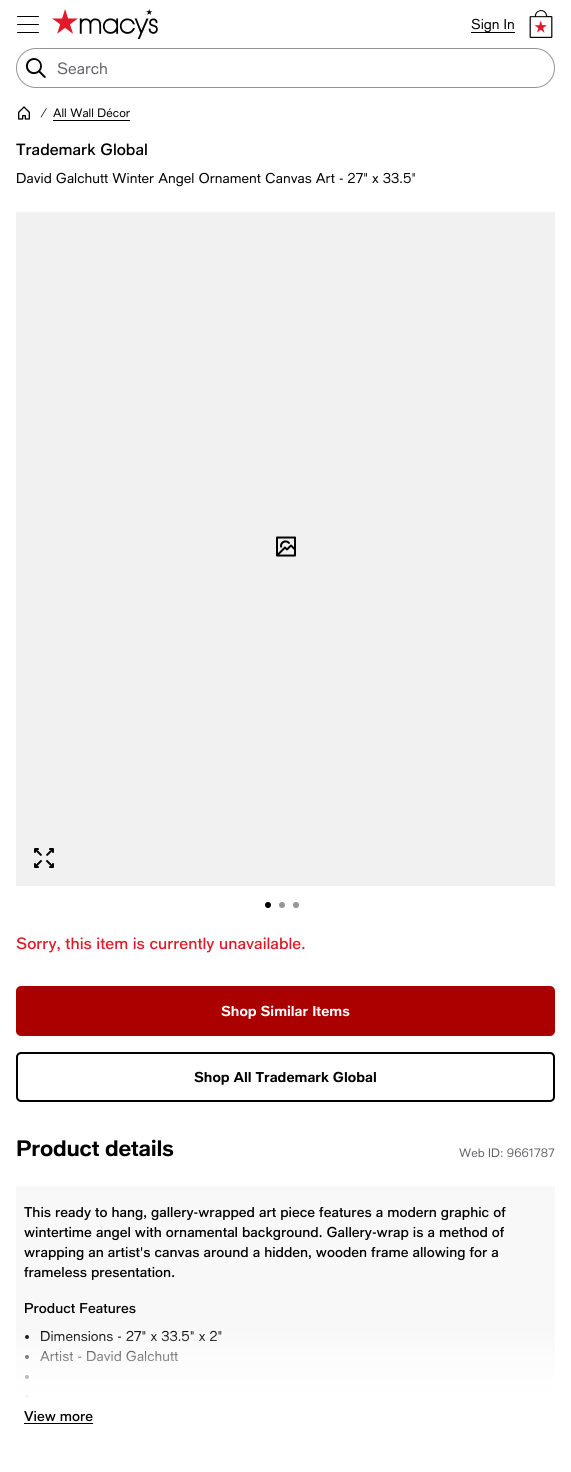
#include <cairo.h>
#include <math.h>
#include <stddef.h>

static cairo_t *c;
static void C(unsigned color){cairo_set_source_rgb(c, (color >> 16) / 255.0, (color >> 8 & 255) / 255.0, (color & 255) / 255.0);}
static void F(const char *family, double size, int italic, int bold){cairo_select_font_face(c, family, italic ? CAIRO_FONT_SLANT_ITALIC : CAIRO_FONT_SLANT_NORMAL,bold ? CAIRO_FONT_WEIGHT_BOLD : CAIRO_FONT_WEIGHT_NORMAL);cairo_set_font_size(c, size);}
static void T(double x, double y, const char *s){cairo_move_to(c, x, y);cairo_show_text(c, s);}
static void L(double x, double y, const char *s, double letter, double word){cairo_move_to(c, x, y);while (*s) {char ch[5] = {0};int n = 0;do ch[n++] = *s++; while ((*s & 0xC0) == 0x80);cairo_show_text(c, ch);cairo_rel_move_to(c, letter + word * (*ch == ' '), 0);}}
static void R(double x, double y, double w, double h){cairo_rectangle(c, x, y, w, h);cairo_fill(c);}
static void Q(double x, double y, double w, double h, double r){cairo_new_sub_path(c);cairo_arc(c, x + w - r, y + h - r, r, 0, M_PI / 2);cairo_arc(c, x + r, y + h - r, r, M_PI / 2, M_PI);cairo_arc(c, x + r, y + r, r, M_PI, 1.5 * M_PI);cairo_arc(c, x + w - r, y + r, r, 1.5 * M_PI, 2 * M_PI);cairo_close_path(c);}
static void I(const char *path, double x, double y, double w, double h){cairo_surface_t *image = cairo_image_surface_create_from_png(path);cairo_save(c);cairo_set_source_surface(c, image, x, y);cairo_rectangle(c, x, y, w, h);cairo_fill(c);cairo_restore(c);cairo_surface_destroy(image);}
int main(void) {
cairo_surface_t *surface = cairo_image_surface_create(CAIRO_FORMAT_RGB24, 571, 1472);
c = cairo_create(surface);
cairo_font_options_t *options = cairo_font_options_create();
cairo_font_options_set_hint_metrics(options, CAIRO_HINT_METRICS_OFF);
cairo_font_options_set_hint_style(options, CAIRO_HINT_STYLE_NONE);
cairo_set_font_options(c, options);
cairo_set_miter_limit(c, 4);
cairo_pattern_t *gradient;
C(0xffffff);
cairo_paint(c);
I("1.png",17,16,22,17);
I("2.png",52,9,106,30);
C(0x000000);
R(471,32,44,1);
F("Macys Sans",14,0,0);
T(471,29,"Sign In");
I("3.png",529,10,24,28);
Q(16.5,48.5,538,39,19.5);
C(0x959499);
cairo_set_line_width(c,1);
cairo_stroke(c);
I("4.png",25,58,21,20);
F("Macys Sans",16,0,0);
C(0x626369);
T(57,74,"Search");
I("5.png",18,106,12,14);
F("Macys Sans",12,1,0);
C(0x000000);
T(40,117,"/");
F("Macys Sans",12,0,0);
T(53,117,"All Wall Décor");
R(53,120,77,1);
F("Macys Sans Medium",16,0,0);
T(16,155,"Trademark Global");
F("Macys Sans",14,0,0);
T(16,183,"David Galchutt Winter Angel Ornament Canvas Art - 27\" x 33.5\"");
C(0xf1f1f1);
R(16,212,539,674);
I("6.png",276,536,20,21);
I("7.png",34,848,20,20);
C(0x000000);
cairo_arc(c,268,905,2.5,0,2 * M_PI);
cairo_fill_preserve(c);
cairo_stroke(c);
C(0x959499);
cairo_arc(c,282,905,2.5,0,2 * M_PI);
cairo_fill_preserve(c);
cairo_stroke(c);
cairo_arc(c,296,905,2.5,0,2 * M_PI);
cairo_fill_preserve(c);
cairo_stroke(c);
F("Macys Sans Medium",16,0,0);
C(0xe01a2b);
T(16,949,"Sorry, this item is currently unavailable.");
C(0xab0000);
Q(16,986,539,50,5);
cairo_fill(c);
F("Macys Sans",14,0,1);
C(0xffffff);
T(221,1016,"Shop Similar Items");
Q(17,1053,537,48,4);
C(0x000000);
cairo_set_line_width(c,2);
cairo_stroke(c);
T(194,1082,"Shop All Trademark Global");
F("Macys Sans",22,0,1);
L(16,1156,"Product details",-.25,0);
F("Macys Sans",12,0,0);
C(0x626369);
T(459,1157,"Web ID: 9661787");
C(0xf8f8f8);
R(16,1186,539,213);
F("Macys Sans Medium",14,0,0);
C(0x000000);
T(24,1217,"This ready to hang, gallery-wrapped art piece features a modern graphic of");
T(24,1237,"wintertime angel with ornamental background. Gallery-wrap is a method of");
T(24,1257,"wrapping an artist's canvas around a hidden, wooden frame allowing for a");
T(24,1277,"frameless presentation.");
T(24,1313,"Product Features");
cairo_new_path(c);
cairo_arc(c,27,1337,2,0,2 * M_PI);
cairo_fill(c);
F("Macys Sans",14,0,0);
T(40,1341,"Dimensions - 27\" x 33.5\" x 2\"");
cairo_new_path(c);
cairo_arc(c,27,1357,2,0,2 * M_PI);
cairo_fill(c);
T(40,1361,"Artist - David Galchutt");
cairo_new_path(c);
cairo_arc(c,27,1377,2,0,2 * M_PI);
cairo_fill(c);
cairo_arc(c,27,1397,2,0,2 * M_PI);
cairo_fill(c);
gradient = cairo_pattern_create_linear(286,1330,286,1426);
cairo_pattern_add_color_stop_rgba(gradient,0,1,1,1,0);
cairo_pattern_add_color_stop_rgba(gradient,.28,1,1,1,.5);
cairo_pattern_add_color_stop_rgba(gradient,.72,1,1,1,1);
cairo_set_source(c,gradient);
cairo_pattern_destroy(gradient);
R(16,1331,539,68);
F("Macys Sans Medium",14,0,0);
C(0x000000);
T(24,1421,"View more");
R(24,1423,69,1);
cairo_surface_write_to_png(surface, "o.png");
cairo_font_options_destroy(options);
cairo_destroy(c);
cairo_surface_destroy(surface);
return 0;
}
